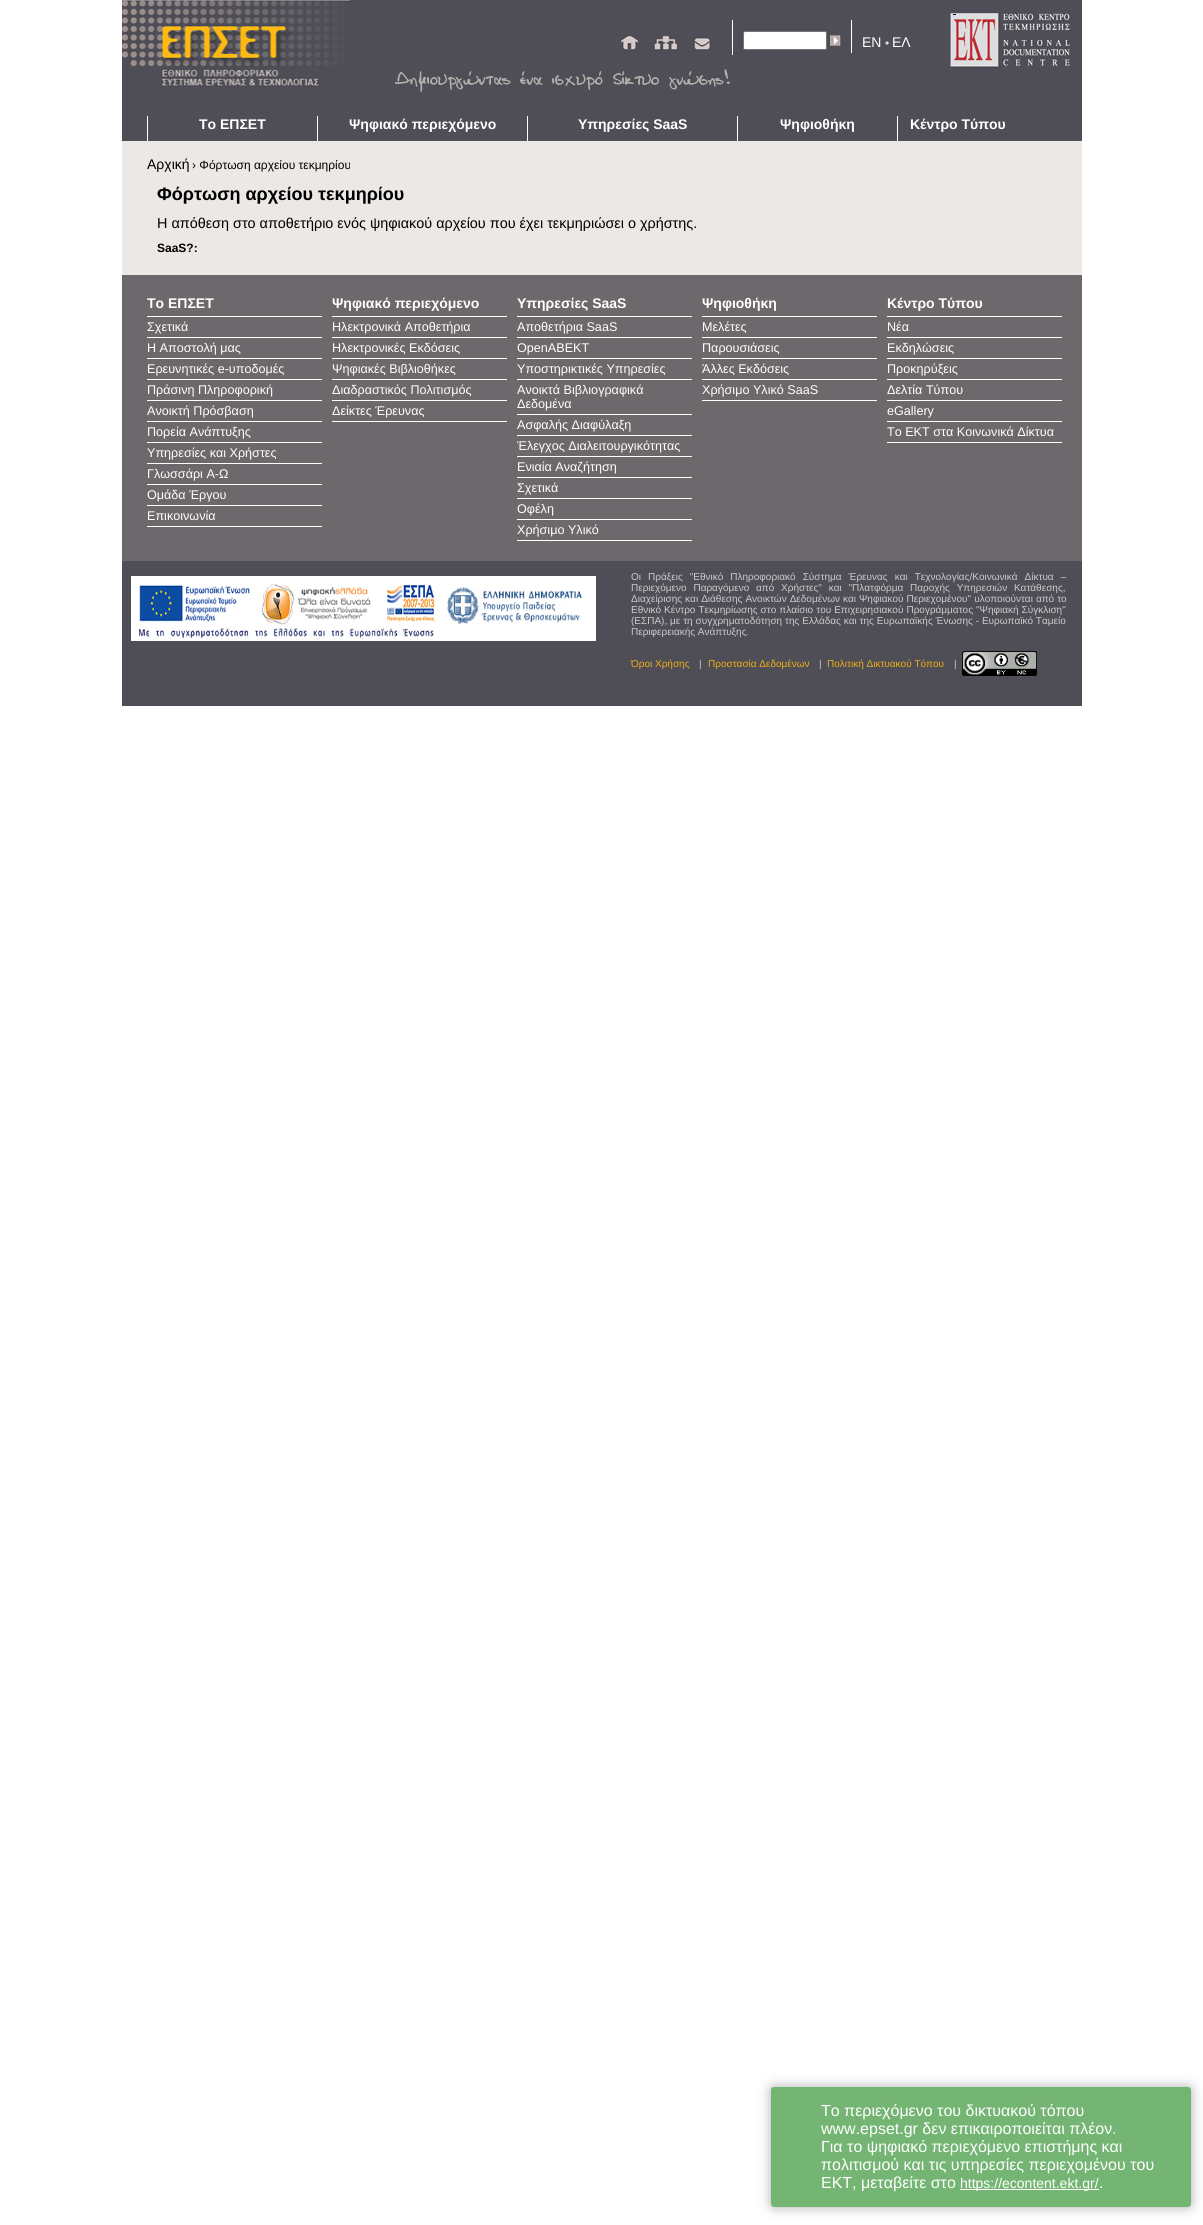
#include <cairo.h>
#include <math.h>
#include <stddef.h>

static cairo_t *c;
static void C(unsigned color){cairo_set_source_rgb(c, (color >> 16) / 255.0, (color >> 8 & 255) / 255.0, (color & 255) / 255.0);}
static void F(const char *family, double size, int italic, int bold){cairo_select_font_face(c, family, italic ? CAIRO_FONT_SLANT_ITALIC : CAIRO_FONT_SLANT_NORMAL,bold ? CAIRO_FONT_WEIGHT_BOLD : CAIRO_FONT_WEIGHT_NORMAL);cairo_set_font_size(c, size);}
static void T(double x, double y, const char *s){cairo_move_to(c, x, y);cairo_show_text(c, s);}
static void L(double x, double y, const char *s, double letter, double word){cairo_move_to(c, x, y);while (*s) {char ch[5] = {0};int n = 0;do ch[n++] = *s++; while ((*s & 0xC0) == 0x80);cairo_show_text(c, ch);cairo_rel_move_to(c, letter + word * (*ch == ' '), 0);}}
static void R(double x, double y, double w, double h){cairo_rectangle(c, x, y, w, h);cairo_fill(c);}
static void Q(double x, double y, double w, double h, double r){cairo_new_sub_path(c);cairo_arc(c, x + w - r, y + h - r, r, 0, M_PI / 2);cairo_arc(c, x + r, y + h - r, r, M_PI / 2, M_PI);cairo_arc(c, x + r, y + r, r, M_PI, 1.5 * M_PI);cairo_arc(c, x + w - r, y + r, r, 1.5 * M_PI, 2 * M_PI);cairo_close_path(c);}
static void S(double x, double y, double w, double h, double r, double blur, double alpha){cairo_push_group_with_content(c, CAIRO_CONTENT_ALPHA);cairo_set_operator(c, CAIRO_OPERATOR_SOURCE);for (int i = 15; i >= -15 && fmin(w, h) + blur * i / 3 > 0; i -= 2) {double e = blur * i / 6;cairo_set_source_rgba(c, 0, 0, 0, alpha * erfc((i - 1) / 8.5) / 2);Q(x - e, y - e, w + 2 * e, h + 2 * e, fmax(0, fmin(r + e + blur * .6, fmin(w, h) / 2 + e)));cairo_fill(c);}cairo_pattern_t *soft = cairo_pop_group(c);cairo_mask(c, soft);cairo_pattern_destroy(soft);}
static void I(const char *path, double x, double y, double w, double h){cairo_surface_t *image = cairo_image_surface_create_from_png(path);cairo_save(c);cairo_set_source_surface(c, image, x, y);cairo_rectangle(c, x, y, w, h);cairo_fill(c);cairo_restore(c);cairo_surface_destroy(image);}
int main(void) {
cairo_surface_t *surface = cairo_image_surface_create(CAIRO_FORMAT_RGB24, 1203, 2225);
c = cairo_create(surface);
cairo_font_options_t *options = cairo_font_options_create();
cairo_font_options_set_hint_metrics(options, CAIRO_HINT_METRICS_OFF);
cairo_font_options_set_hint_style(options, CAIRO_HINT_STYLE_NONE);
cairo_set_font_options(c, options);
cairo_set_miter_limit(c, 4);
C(0xffffff);
cairo_paint(c);
C(0x4f4d55);
R(122,0,960,141);
I("1.png",395,13,675,79);
I("2.png",122,0,228,87);
C(0x000000);
R(953,14,3,1);
C(0xffffff);
R(732,20,1,35);
I("3.png",620,35,19,16);
I("4.png",653,35,26,16);
I("5.png",693,37,18,14);
R(851,20,1,33);
Q(743.5,31.5,83,18,1.5);
cairo_fill_preserve(c);
C(0x767676);
cairo_set_line_width(c,1);
cairo_stroke(c);
I("6.png",830,35,11,11);
F("Liberation Sans",14,0,0);
C(0xffffff);
T(862,47,"EN");
F("Liberation Sans",12,0,0);
C(0xdddddd);
T(885,47,"•");
F("Liberation Sans",14,0,0);
C(0xffffff);
T(892,47,"ΕΛ");
R(147,116,1,25);
F("Liberation Sans",14,0,1);
T(199,129,"Το ΕΠΣΕΤ");
R(317,116,1,25);
T(349,129,"Ψηφιακό περιεχόμενο");
R(527,116,1,25);
T(578,129,"Υπηρεσίες SaaS");
R(737,116,1,25);
T(780,129,"Ψηφιοθήκη");
R(897,116,1,25);
T(910,129,"Κέντρο Τύπου");
C(0xebe8e6);
R(122,141,960,134);
F("Liberation Sans",14,0,0);
C(0x000000);
T(147,169,"Αρχική");
F("Liberation Sans",12,0,0);
T(192,169,"› Φόρτωση αρχείου τεκμηρίου");
F("Liberation Sans",18,0,1);
T(157,200,"Φόρτωση αρχείου τεκμηρίου");
F("Liberation Sans",14.4,0,0);
T(157,228,"Η απόθεση στο αποθετήριο ενός ψηφιακού αρχείου που έχει τεκμηριώσει ο χρήστης.");
F("Liberation Sans",12,0,1);
T(157,252,"SaaS?:");
C(0x6d686c);
R(122,275,960,286);
C(0xffffff);
R(147,316,175,1);
F("Liberation Sans",14,0,1);
T(147,308,"Το ΕΠΣΕΤ");
R(147,337,175,1);
F("Liberation Sans",12.6,0,0);
T(147,331,"Σχετικά");
R(147,358,175,1);
T(147,352,"Η Αποστολή μας");
R(147,379,175,1);
T(147,373,"Ερευνητικές e-υποδομές");
R(147,400,175,1);
T(147,394,"Πράσινη Πληροφορική");
R(147,421,175,1);
T(147,415,"Ανοικτή Πρόσβαση");
R(147,442,175,1);
T(147,436,"Πορεία Ανάπτυξης");
R(147,463,175,1);
T(147,457,"Υπηρεσίες και Χρήστες");
R(147,484,175,1);
T(147,478,"Γλωσσάρι Α-Ω");
R(147,505,175,1);
T(147,499,"Ομάδα Έργου");
R(147,526,175,1);
T(147,520,"Επικοινωνία");
R(332,316,175,1);
F("Liberation Sans",14,0,1);
T(332,308,"Ψηφιακό περιεχόμενο");
R(332,337,175,1);
F("Liberation Sans",12.6,0,0);
T(332,331,"Ηλεκτρονικά Αποθετήρια");
R(332,358,175,1);
T(332,352,"Ηλεκτρονικές Εκδόσεις");
R(332,379,175,1);
T(332,373,"Ψηφιακές Βιβλιοθήκες");
R(332,400,175,1);
T(332,394,"Διαδραστικός Πολιτισμός");
R(332,421,175,1);
T(332,415,"Δείκτες Έρευνας");
R(517,316,175,1);
F("Liberation Sans",14,0,1);
T(517,308,"Υπηρεσίες SaaS");
R(517,337,175,1);
F("Liberation Sans",12.6,0,0);
T(517,331,"Αποθετήρια SaaS");
R(517,358,175,1);
T(517,352,"OpenAΒΕΚΤ");
R(517,379,175,1);
T(517,373,"Υποστηρικτικές Υπηρεσίες");
R(517,414,175,1);
T(517,394,"Ανοικτά Βιβλιογραφικά");
T(517,408,"Δεδομένα");
R(517,435,175,1);
T(517,429,"Ασφαλής Διαφύλαξη");
R(517,456,175,1);
T(517,450,"Έλεγχος Διαλειτουργικότητας");
R(517,477,175,1);
T(517,471,"Ενιαία Αναζήτηση");
R(517,498,175,1);
T(517,492,"Σχετικά");
R(517,519,175,1);
T(517,513,"Οφέλη");
R(517,540,175,1);
T(517,534,"Χρήσιμο Υλικό");
R(702,316,175,1);
F("Liberation Sans",14,0,1);
T(702,308,"Ψηφιοθήκη");
R(702,337,175,1);
F("Liberation Sans",12.6,0,0);
T(702,331,"Μελέτες");
R(702,358,175,1);
T(702,352,"Παρουσιάσεις");
R(702,379,175,1);
T(702,373,"Άλλες Εκδόσεις");
R(702,400,175,1);
T(702,394,"Χρήσιμο Υλικό SaaS");
R(887,316,175,1);
F("Liberation Sans",14,0,1);
T(887,308,"Κέντρο Τύπου");
R(887,337,175,1);
F("Liberation Sans",12.6,0,0);
T(887,331,"Νέα");
R(887,358,175,1);
T(887,352,"Εκδηλώσεις");
R(887,379,175,1);
T(887,373,"Προκηρύξεις");
R(887,400,175,1);
T(887,394,"Δελτία Τύπου");
R(887,421,175,1);
T(887,415,"eGallery");
R(887,442,175,1);
T(887,436,"Το ΕΚΤ στα Κοινωνικά Δίκτυα");
C(0x4f4d55);
R(122,561,960,145);
I("7.png",131,576,125,65);
I("8.png",256,576,125,65);
I("9.png",381,576,60,65);
I("10.png",441,576,155,65);
F("Liberation Sans",10,0,0);
C(0xcccccc);
L(631,580,"Οι Πράξεις \"Εθνικό Πληροφοριακό Σύστημα Έρευνας και Τεχνολογίας/Κοινωνικά Δίκτυα –",0,4.25);
L(631,591,"Περιεχόμενο Παραγόμενο από Χρήστες\" και \"Πλατφόρμα Παροχής Υπηρεσιών Κατάθεσης,",0,4);
L(631,602,"Διαχείρισης και Διάθεσης Ανοικτών Δεδομένων και Ψηφιακού Περιεχομένου\" υλοποιούνται από το",0,.25);
L(631,613,"Εθνικό Κέντρο Τεκμηρίωσης στο πλαίσιο του Επιχειρησιακού Προγράμματος \"Ψηφιακή Σύγκλιση\"",0,.25);
L(631,624,"(ΕΣΠΑ), με τη συγχρηματοδότηση της Ελλάδας και της Ευρωπαϊκής Ένωσης - Ευρωπαϊκό Ταμείο",0,.1);
T(631,635,"Περιφερειακής Ανάπτυξης.");
C(0xefb117);
T(631,667,"Όροι Χρήσης");
C(0xcccccc);
T(699,667,"|");
C(0xefb117);
T(708,667,"Προστασία Δεδομένων");
C(0xcccccc);
T(819,667,"|");
C(0xefb117);
T(827,667,"Πολιτική Δικτυακού Τόπου");
C(0xcccccc);
T(954,667,"|");
I("11.png",962,651,75,25);
C(0xadadad);
S(771,2087,420,120,3,6,1);
C(0x74b574);
Q(771,2087,420,120,3);
cairo_fill(c);
F("Liberation Sans",16,0,0);
C(0xffffff);
T(821,2116,"To περιεχόμενο του δικτυακού τόπου");
T(821,2134,"www.epset.gr δεν επικαιροποιείται πλέον.");
T(821,2152,"Για το ψηφιακό περιεχόμενο επιστήμης και");
T(821,2170,"πολιτισμού και τις υπηρεσίες περιεχομένου του");
T(821,2188,"ΕΚΤ, μεταβείτε στο");
R(960,2189,139,1);
F("Liberation Sans",14,0,0);
T(960,2188,"https://econtent.ekt.gr/");
F("Liberation Sans",16,0,0);
T(1099,2188,".");
cairo_surface_write_to_png(surface, "o.png");
cairo_font_options_destroy(options);
cairo_destroy(c);
cairo_surface_destroy(surface);
return 0;
}
